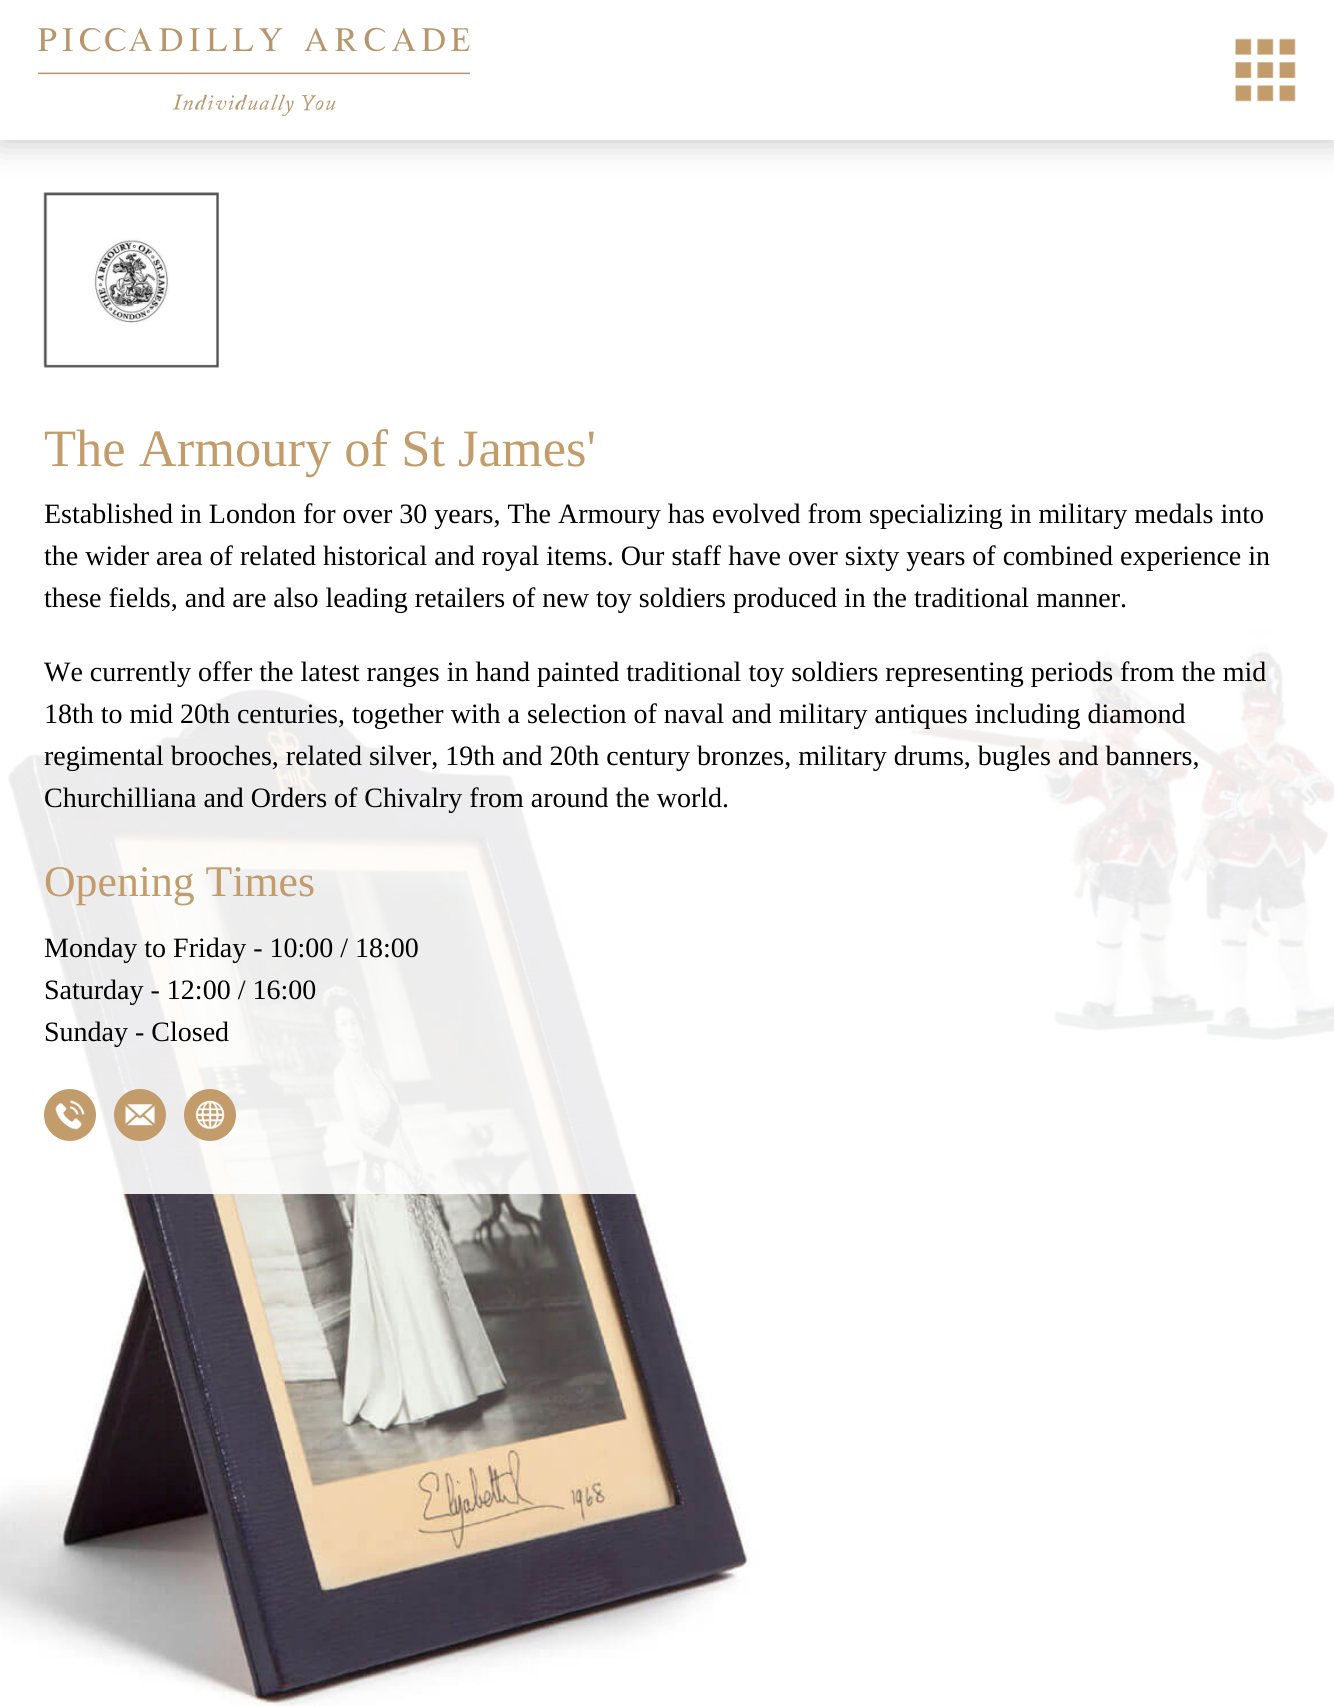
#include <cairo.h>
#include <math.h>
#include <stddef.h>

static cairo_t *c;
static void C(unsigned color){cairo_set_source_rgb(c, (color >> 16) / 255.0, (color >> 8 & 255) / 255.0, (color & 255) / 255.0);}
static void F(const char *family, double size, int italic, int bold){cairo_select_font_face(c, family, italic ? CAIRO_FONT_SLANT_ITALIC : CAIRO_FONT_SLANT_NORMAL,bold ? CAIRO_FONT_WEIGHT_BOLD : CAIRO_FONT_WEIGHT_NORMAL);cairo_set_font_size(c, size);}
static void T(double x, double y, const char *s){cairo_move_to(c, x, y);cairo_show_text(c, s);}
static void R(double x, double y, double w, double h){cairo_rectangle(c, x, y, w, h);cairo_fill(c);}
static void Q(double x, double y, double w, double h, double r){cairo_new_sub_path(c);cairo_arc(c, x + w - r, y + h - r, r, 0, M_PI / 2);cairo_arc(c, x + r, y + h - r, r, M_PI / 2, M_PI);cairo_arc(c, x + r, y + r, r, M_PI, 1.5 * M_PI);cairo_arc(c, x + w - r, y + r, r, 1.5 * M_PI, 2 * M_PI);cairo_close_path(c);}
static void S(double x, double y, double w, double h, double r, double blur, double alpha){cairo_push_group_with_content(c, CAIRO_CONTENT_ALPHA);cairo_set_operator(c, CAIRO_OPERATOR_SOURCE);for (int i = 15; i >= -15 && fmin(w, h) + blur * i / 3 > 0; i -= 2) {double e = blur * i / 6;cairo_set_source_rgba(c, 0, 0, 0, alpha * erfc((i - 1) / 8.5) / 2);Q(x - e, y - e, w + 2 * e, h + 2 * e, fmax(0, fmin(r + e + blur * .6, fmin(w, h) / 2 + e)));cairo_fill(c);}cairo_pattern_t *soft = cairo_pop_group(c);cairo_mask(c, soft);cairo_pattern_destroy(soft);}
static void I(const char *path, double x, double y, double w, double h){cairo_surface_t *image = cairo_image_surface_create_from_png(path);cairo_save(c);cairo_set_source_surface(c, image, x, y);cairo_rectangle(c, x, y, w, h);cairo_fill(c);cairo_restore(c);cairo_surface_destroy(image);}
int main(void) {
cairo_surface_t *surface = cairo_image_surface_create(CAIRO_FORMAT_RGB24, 1334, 1706);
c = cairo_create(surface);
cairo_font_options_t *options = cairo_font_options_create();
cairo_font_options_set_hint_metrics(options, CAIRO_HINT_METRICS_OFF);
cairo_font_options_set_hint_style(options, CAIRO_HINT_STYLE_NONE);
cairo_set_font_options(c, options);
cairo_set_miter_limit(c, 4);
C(0xffffff);
cairo_paint(c);
I("3.png",0,140,1334,1566);
I("4.png",43,192,176,176);
C(0x000000);
S(0,0,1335,140,0,17.5,.25);
C(0xffffff);
R(0,0,1334,140);
I("1.png",38,27,432,89);
I("2.png",1235,38,61,64);
cairo_set_source_rgba(c,1,1,1,0.9);
R(2,637,1332,557);
F("Liberation Serif",52.5,0,0);
C(0xc39c6b);
T(44,466,"The Armoury of St James'");
F("Liberation Serif",28,0,0);
C(0x000000);
T(44,523,"Established in London for over 30 years, The Armoury has evolved from specializing in military medals into");
T(44,565,"the wider area of related historical and royal items. Our staff have over sixty years of combined experience in");
T(44,607,"these fields, and are also leading retailers of new toy soldiers produced in the traditional manner.");
T(44,681,"We currently offer the latest ranges in hand painted traditional toy soldiers representing periods from the mid");
T(44,723,"18th to mid 20th centuries, together with a selection of naval and military antiques including diamond");
T(44,765,"regimental brooches, related silver, 19th and 20th century bronzes, military drums, bugles and banners,");
T(44,807,"Churchilliana and Orders of Chivalry from around the world.");
F("Liberation Serif",43.75,0,0);
C(0xc39c6b);
T(44,896,"Opening Times");
F("Liberation Serif",28,0,0);
C(0x000000);
T(44,957,"Monday to Friday - 10:00 / 18:00");
T(44,999,"Saturday - 12:00 / 16:00");
T(44,1041,"Sunday - Closed");
C(0xc39c6b);
cairo_new_path(c);
cairo_arc(c,70,1115,26,0,2 * M_PI);
cairo_fill(c);
I("5.png",55,1100,30,30);
cairo_arc(c,140,1115,26,0,2 * M_PI);
cairo_fill(c);
I("6.png",125,1104,30,22);
cairo_arc(c,210,1115,26,0,2 * M_PI);
cairo_fill(c);
I("7.png",195,1100,30,30);
cairo_surface_write_to_png(surface, "o.png");
cairo_font_options_destroy(options);
cairo_destroy(c);
cairo_surface_destroy(surface);
return 0;
}
